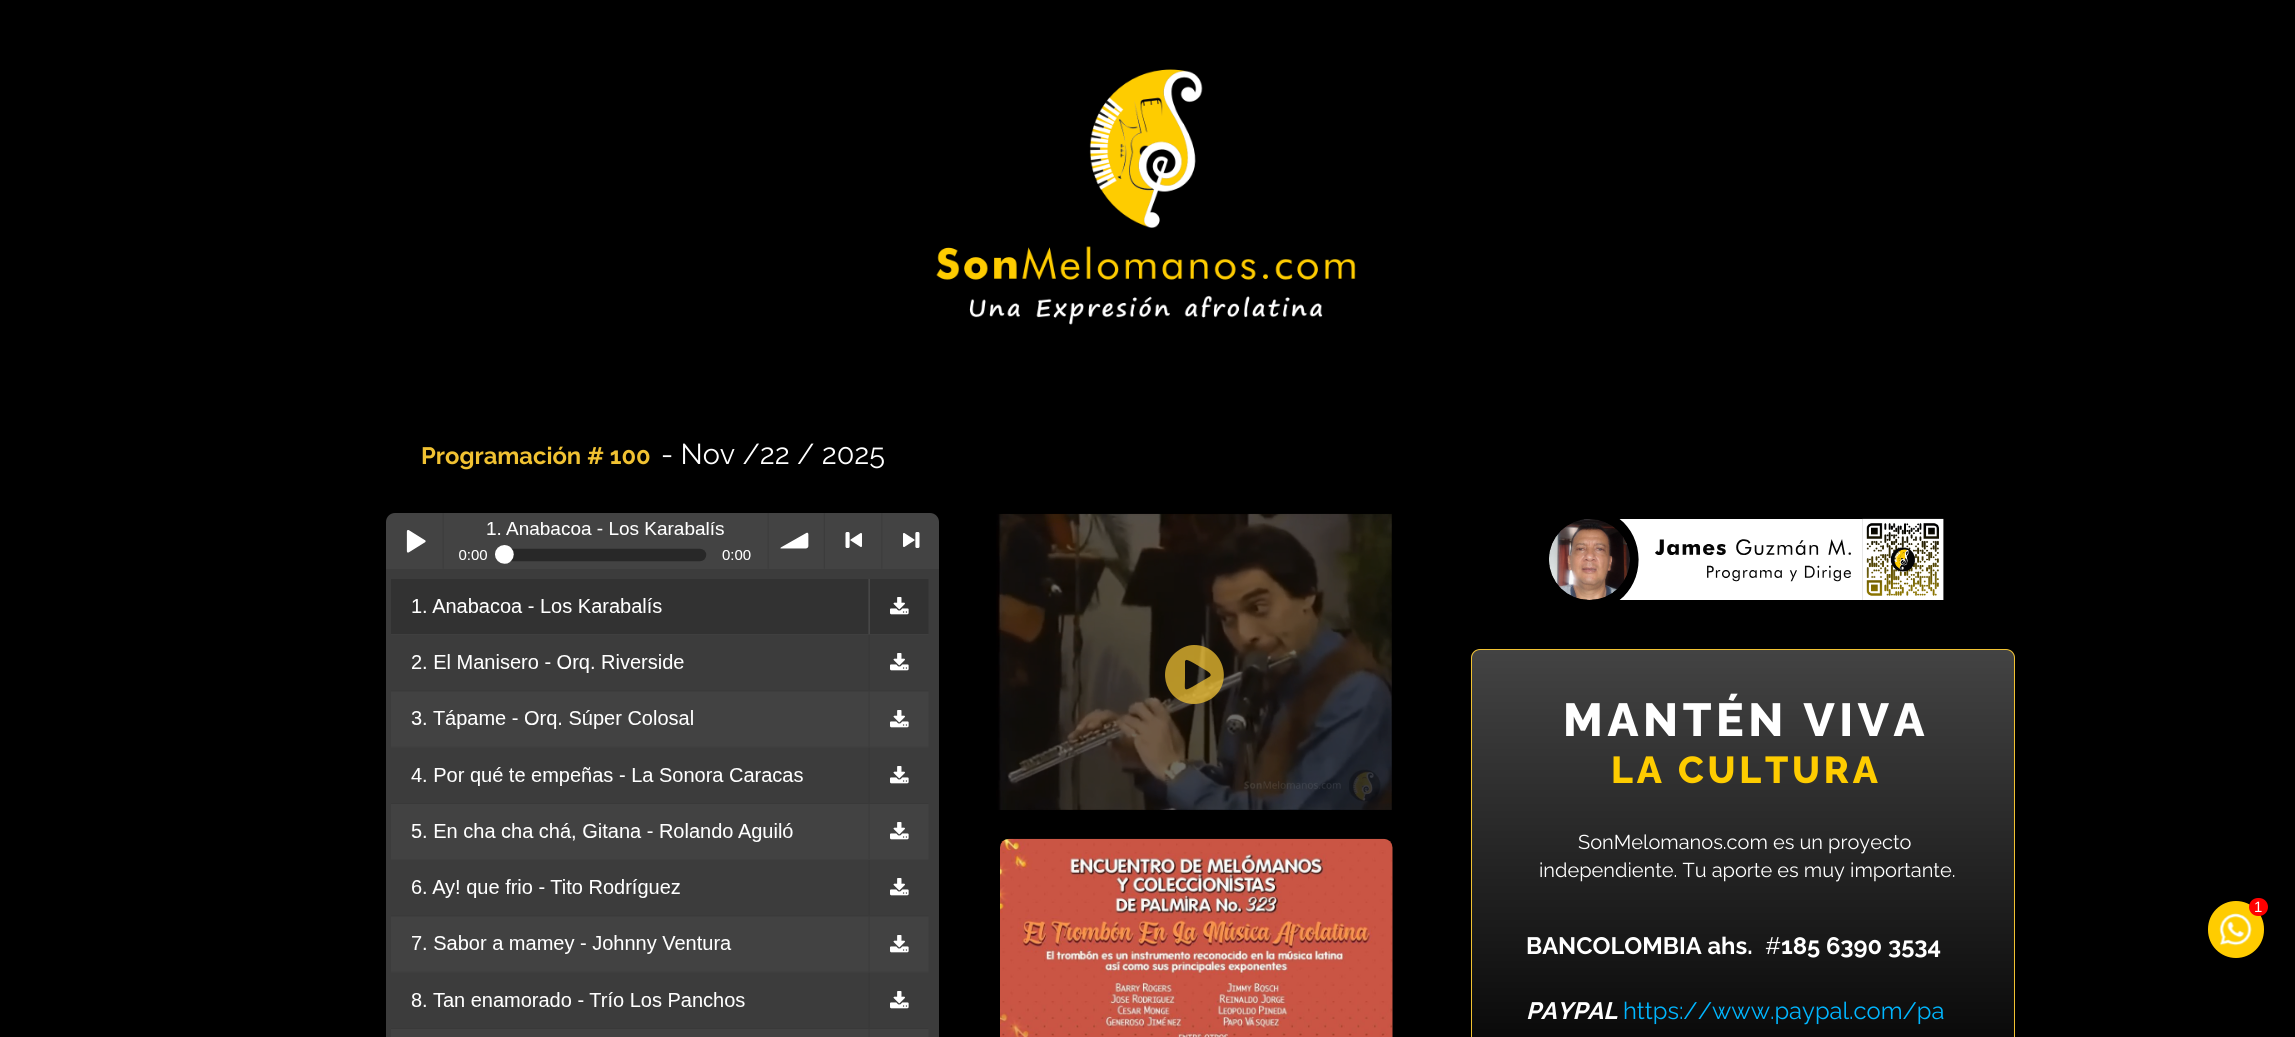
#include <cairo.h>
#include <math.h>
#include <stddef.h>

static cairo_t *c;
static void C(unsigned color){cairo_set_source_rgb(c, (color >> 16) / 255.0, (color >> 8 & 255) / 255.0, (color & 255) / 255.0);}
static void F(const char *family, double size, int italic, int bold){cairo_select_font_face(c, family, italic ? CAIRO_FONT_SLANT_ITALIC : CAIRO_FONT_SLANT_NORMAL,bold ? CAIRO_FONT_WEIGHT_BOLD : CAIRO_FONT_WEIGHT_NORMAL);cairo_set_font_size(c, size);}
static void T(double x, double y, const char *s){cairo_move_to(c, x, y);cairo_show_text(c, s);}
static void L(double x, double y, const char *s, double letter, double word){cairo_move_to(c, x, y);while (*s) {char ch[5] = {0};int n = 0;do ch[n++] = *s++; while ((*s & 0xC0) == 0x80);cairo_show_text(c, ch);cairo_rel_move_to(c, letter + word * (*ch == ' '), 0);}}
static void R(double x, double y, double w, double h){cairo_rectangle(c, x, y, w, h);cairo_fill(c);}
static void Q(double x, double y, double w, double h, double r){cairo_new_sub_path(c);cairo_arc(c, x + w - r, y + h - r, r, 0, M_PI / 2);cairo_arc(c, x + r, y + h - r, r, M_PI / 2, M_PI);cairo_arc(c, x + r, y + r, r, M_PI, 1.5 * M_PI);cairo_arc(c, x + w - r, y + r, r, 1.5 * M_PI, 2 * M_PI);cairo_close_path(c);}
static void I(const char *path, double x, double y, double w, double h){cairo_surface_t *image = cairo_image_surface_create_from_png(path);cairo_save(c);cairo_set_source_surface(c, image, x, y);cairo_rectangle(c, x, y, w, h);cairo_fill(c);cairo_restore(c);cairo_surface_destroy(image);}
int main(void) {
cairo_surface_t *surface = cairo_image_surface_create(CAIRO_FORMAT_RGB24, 2295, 1037);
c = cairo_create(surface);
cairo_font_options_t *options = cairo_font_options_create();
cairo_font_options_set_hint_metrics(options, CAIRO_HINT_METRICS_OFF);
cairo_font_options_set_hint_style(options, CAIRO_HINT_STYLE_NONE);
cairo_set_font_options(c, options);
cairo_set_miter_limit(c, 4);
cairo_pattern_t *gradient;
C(0x000000);
cairo_paint(c);
I("1.png",936,69,420,256);
F("Raleway",23.75,0,1);
C(0xf1c232);
T(421,464,"Programación # 100");
F("Raleway",28.75,0,0);
C(0xffffff);
T(661,464,"- Nov /22 / 2025");
C(0x434343);
Q(386,513,553,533,9);
cairo_fill(c);
I("2.png",386,513,553,524);
I("3.png",996,513,396,297);
I("4.png",1549,518,395,82);
cairo_set_source_rgba(c,0.945,0.761,0.196,0.74);
cairo_new_path(c);
cairo_move_to(c,1194,645);
cairo_curve_to(c,1223,645,1235,683,1211,699);
cairo_curve_to(c,1206,702,1200,704,1194,704);
cairo_curve_to(c,1167,704,1155,671,1175,653);
cairo_curve_to(c,1181,648,1187,645,1194,645);
cairo_close_path(c);
cairo_move_to(c,1209,677);
cairo_curve_to(c,1215,674,1203,669,1202,668);
cairo_curve_to(c,1200,667,1188,659,1186,660);
cairo_line_to(c,1185,661);
cairo_line_to(c,1185,679);
cairo_curve_to(c,1185,689,1183,692,1192,687);
cairo_close_path(c);
cairo_fill(c);
cairo_save(c);
Q(1471,649,544,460,9);
cairo_clip(c);
gradient = cairo_pattern_create_linear(1743,650,1743,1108);
cairo_pattern_add_color_stop_rgba(gradient,0,0.263,0.263,0.263,1);
cairo_pattern_add_color_stop_rgba(gradient,1,0,0,0,1);
cairo_set_source(c,gradient);
cairo_pattern_destroy(gradient);
R(1471,650,544,387);
cairo_restore(c);
Q(1471.5,649.5,543,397,8.5);
C(0xf1c232);
cairo_set_line_width(c,1);
cairo_stroke(c);
F("Raleway ExtraBold",46.25,0,0);
C(0xffffff);
L(1563,736,"MANTÉN VIVA",4.6,0);
F("Raleway ExtraBold",37.5,0,0);
C(0xfecc00);
L(1611,783,"LA CULTURA",3.75,0);
I("5.png",1000,838,393,199);
F("Raleway",20,0,0);
C(0xffffff);
T(1578,849,"SonMelomanos.com es un proyecto");
T(1539,877,"independiente. Tu aporte es muy importante.");
F("Raleway",23.75,0,1);
T(1526,954,"BANCOLOMBIA ahs.");
F("Raleway",23.75,0,0);
T(1765,954,"#");
F("Raleway",23.75,0,1);
T(1781,954,"185 6390 3534");
F("Raleway",23.75,1,1);
T(1526,1019,"PAYPAL");
F("Raleway",23.75,0,0);
C(0x00b6ff);
T(1623,1019,"https://www.paypal.com/pa");
C(0xffcc00);
Q(2208,901,56,57,28);
cairo_fill(c);
I("6.png",2219,913,33,33);
C(0xff0000);
Q(2249,898,19,18,9);
cairo_fill(c);
F("Liberation Sans",15,0,0);
C(0xffffff);
T(2254,912,"1");
cairo_surface_write_to_png(surface, "o.png");
cairo_font_options_destroy(options);
cairo_destroy(c);
cairo_surface_destroy(surface);
return 0;
}
